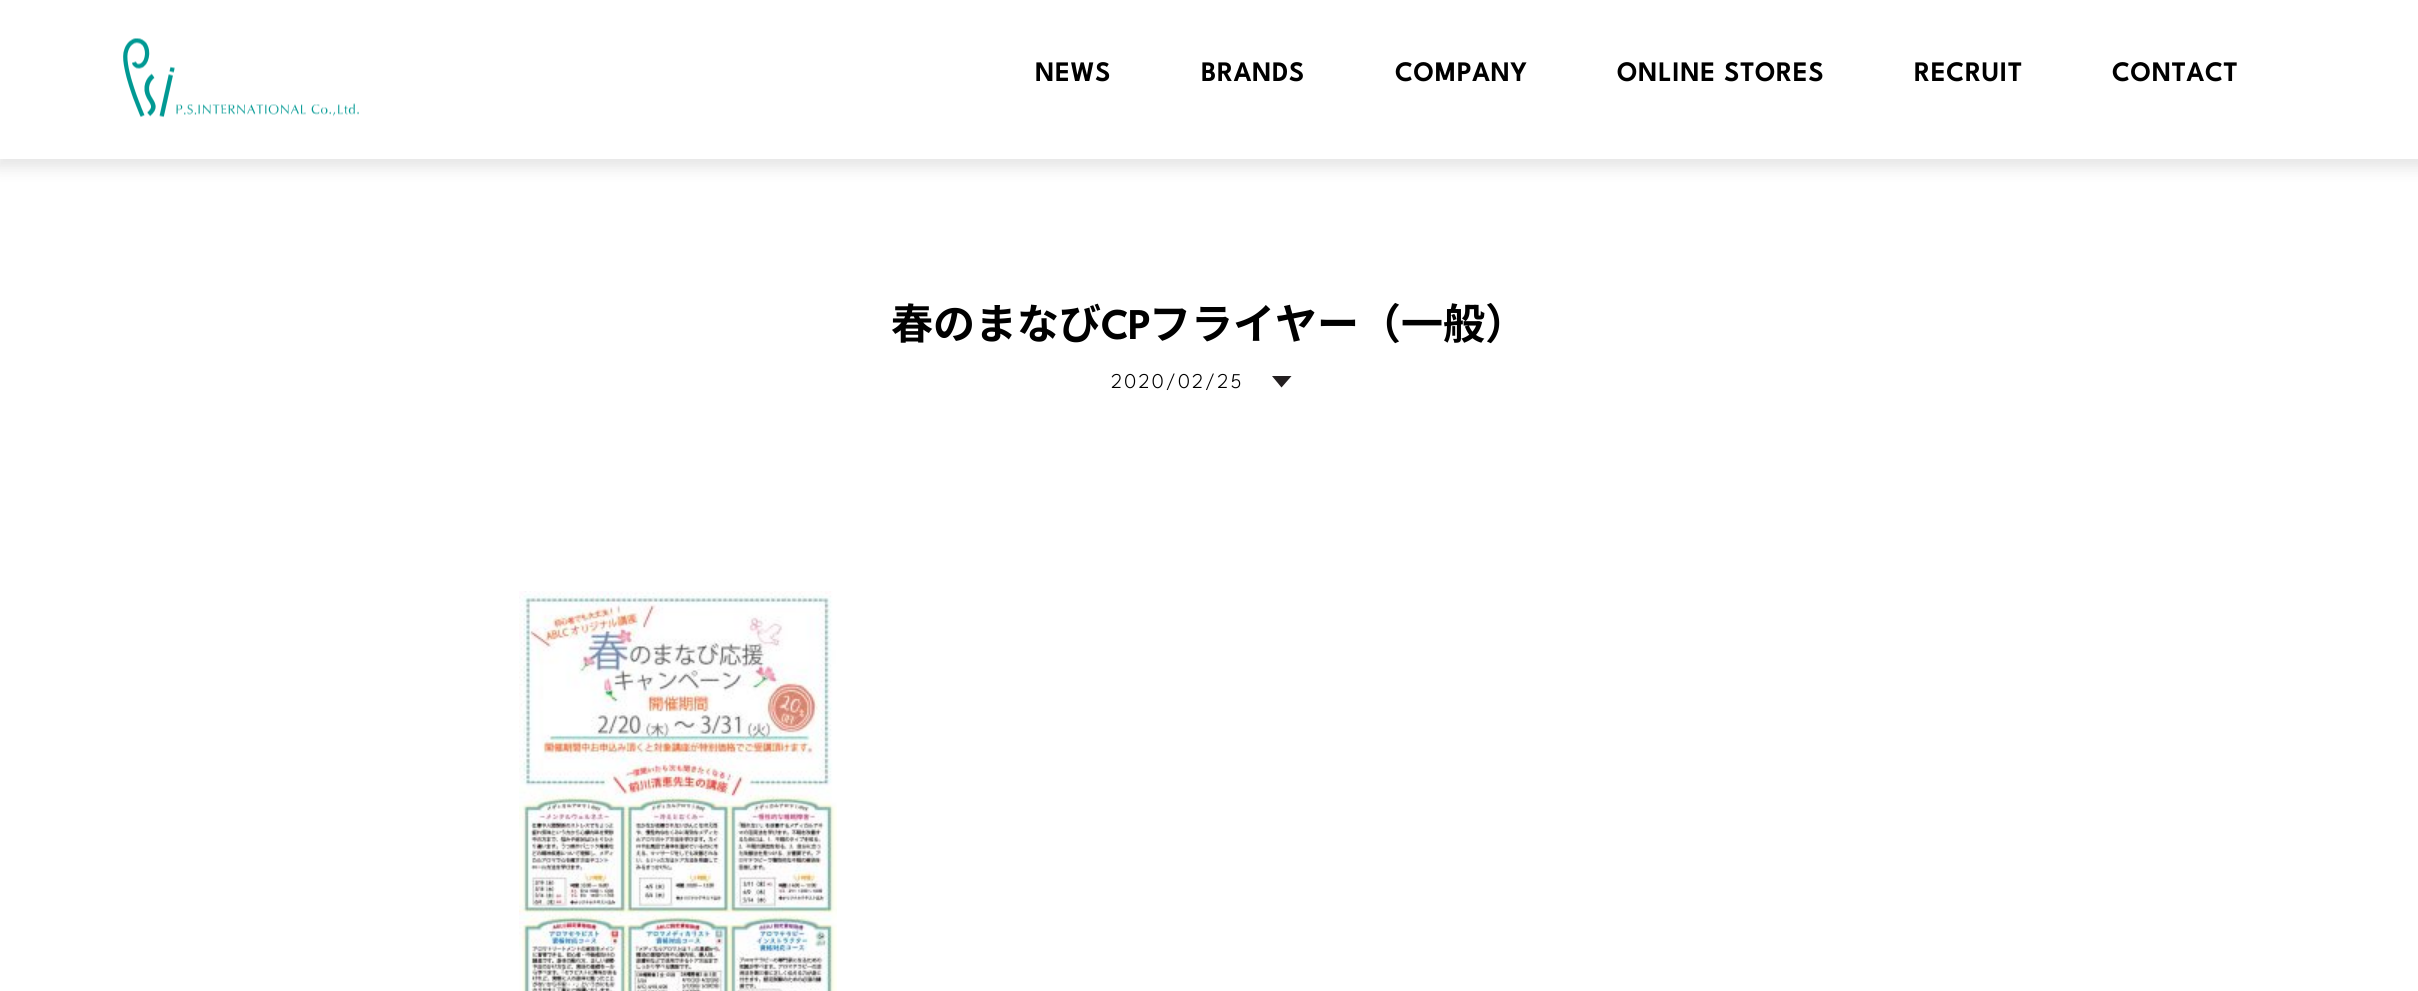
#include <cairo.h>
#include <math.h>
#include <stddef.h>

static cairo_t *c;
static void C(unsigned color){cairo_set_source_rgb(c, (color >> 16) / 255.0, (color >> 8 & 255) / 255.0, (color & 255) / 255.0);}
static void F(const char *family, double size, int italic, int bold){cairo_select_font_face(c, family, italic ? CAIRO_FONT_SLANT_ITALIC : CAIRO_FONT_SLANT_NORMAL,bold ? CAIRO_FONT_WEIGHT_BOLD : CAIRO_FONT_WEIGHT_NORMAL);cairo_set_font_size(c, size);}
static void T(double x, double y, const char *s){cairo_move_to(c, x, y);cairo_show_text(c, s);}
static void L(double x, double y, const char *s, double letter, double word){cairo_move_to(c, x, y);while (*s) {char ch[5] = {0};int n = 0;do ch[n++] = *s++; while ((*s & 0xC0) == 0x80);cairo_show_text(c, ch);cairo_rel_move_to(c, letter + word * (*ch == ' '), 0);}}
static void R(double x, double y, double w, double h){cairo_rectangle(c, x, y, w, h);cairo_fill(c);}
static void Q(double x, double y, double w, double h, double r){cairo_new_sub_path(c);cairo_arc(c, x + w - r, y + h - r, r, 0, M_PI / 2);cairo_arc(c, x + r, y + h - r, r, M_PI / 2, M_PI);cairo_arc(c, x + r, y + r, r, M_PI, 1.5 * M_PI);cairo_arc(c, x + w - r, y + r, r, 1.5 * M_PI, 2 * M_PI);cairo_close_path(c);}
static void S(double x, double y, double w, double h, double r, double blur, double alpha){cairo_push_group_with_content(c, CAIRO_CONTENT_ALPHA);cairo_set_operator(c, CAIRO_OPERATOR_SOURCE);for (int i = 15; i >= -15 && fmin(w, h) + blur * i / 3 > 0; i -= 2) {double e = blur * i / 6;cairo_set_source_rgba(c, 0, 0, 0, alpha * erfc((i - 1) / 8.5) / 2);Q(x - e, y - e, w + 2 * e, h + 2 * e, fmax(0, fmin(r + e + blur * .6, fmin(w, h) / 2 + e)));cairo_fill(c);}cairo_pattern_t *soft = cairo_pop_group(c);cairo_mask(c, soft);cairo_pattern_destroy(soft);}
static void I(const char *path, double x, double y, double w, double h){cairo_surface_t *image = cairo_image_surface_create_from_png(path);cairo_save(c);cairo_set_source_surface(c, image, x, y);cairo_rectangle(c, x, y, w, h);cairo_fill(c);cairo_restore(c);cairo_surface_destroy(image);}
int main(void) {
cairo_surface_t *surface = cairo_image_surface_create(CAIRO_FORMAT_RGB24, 2418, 991);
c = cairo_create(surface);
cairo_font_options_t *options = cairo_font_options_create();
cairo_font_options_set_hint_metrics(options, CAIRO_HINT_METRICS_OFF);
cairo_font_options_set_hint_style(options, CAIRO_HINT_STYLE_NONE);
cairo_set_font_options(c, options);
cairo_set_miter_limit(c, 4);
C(0xffffff);
cairo_paint(c);
C(0x000000);
S(-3,0,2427,168,0,7.5,.1);
C(0xffffff);
R(0,0,2418,159);
I("1.png",123,38,236,80);
F("League Spartan",27,0,1);
C(0x000000);
L(1035,81,"NEWS",1.4,0);
L(1201,81,"BRANDS",1.4,0);
L(1395,81,"COMPANY",1.4,0);
L(1617,81,"ONLINE STORES",1.4,0);
L(1914,81,"RECRUIT",1.4,0);
L(2112,81,"CONTACT",1.4,0);
F("Noto Sans JP",42,0,1);
T(891,339,"春のまなび");
F("League Spartan",42,0,1);
T(1101,339,"CP");
F("Noto Sans JP",42,0,1);
T(1149,339,"フライヤー（一般）");
F("League Spartan Light",21,0,0);
L(1111,388,"2020/02/25",2.1,0);
C(0x231f20);
cairo_new_path(c);
cairo_move_to(c,1272,376);
cairo_line_to(c,1291.5,376);
cairo_line_to(c,1281.5,387.5);
cairo_close_path(c);
cairo_fill(c);
I("2.png",519,591,318,400);
cairo_surface_write_to_png(surface, "o.png");
cairo_font_options_destroy(options);
cairo_destroy(c);
cairo_surface_destroy(surface);
return 0;
}
